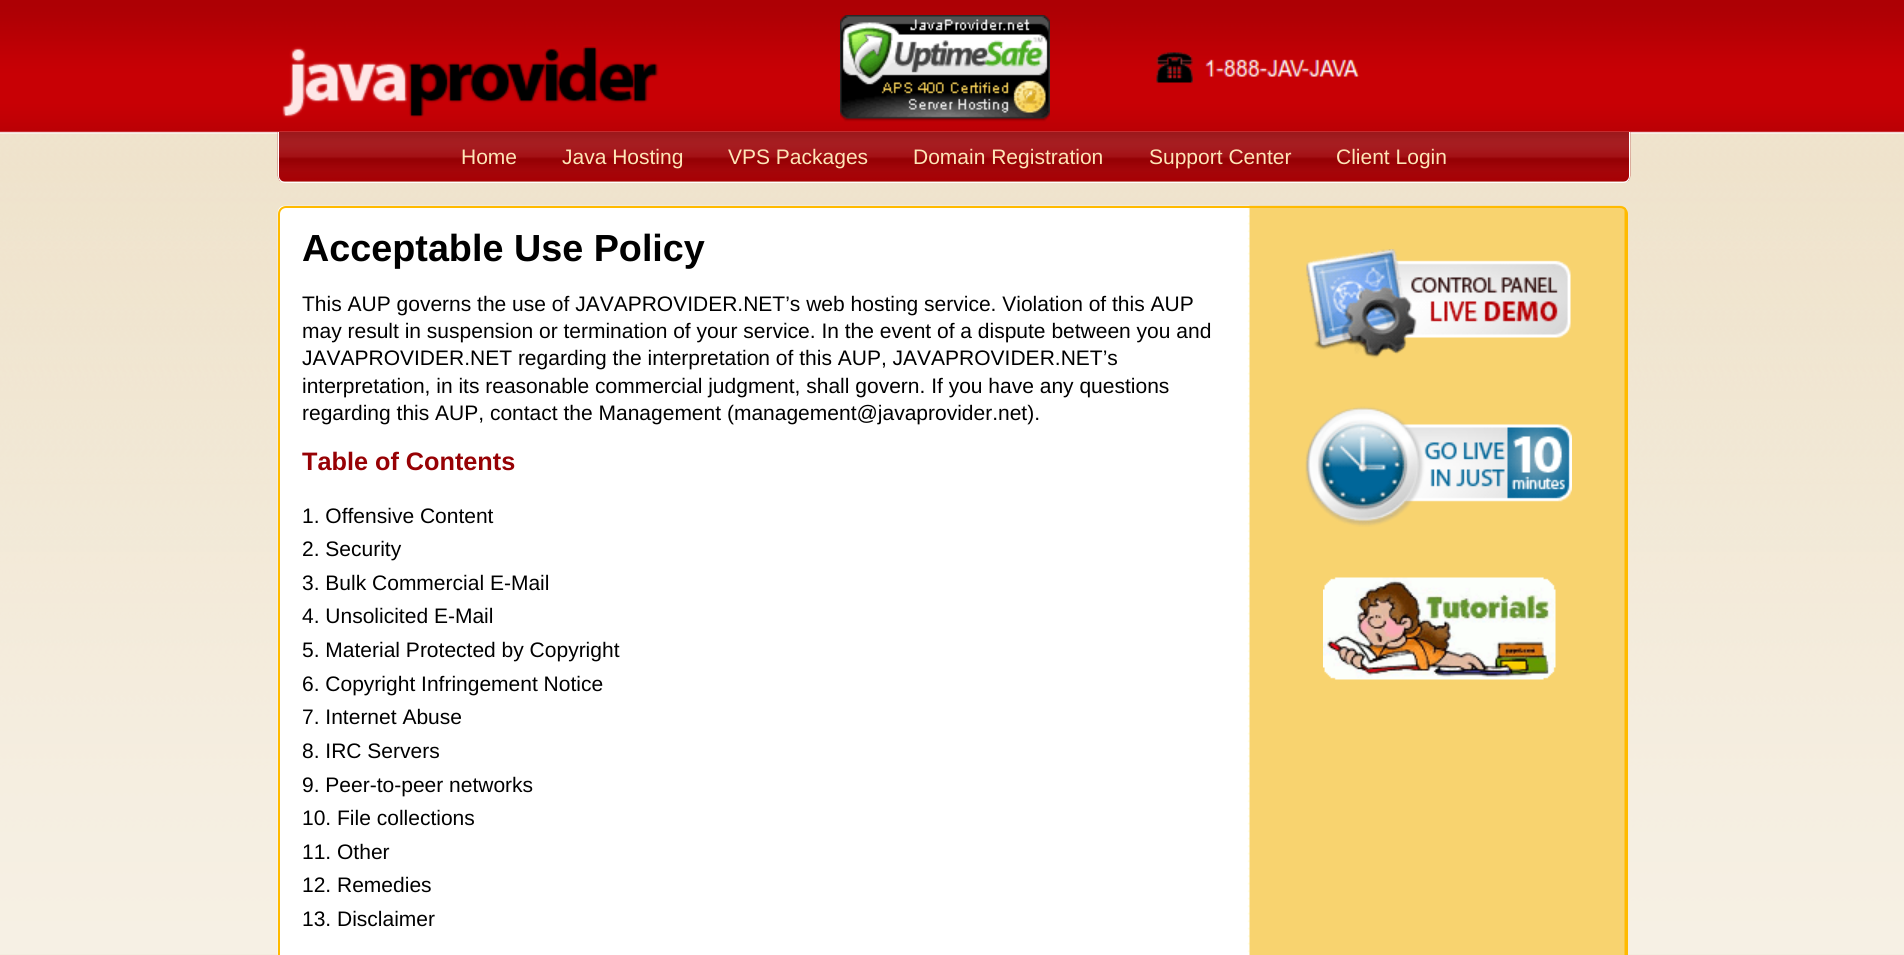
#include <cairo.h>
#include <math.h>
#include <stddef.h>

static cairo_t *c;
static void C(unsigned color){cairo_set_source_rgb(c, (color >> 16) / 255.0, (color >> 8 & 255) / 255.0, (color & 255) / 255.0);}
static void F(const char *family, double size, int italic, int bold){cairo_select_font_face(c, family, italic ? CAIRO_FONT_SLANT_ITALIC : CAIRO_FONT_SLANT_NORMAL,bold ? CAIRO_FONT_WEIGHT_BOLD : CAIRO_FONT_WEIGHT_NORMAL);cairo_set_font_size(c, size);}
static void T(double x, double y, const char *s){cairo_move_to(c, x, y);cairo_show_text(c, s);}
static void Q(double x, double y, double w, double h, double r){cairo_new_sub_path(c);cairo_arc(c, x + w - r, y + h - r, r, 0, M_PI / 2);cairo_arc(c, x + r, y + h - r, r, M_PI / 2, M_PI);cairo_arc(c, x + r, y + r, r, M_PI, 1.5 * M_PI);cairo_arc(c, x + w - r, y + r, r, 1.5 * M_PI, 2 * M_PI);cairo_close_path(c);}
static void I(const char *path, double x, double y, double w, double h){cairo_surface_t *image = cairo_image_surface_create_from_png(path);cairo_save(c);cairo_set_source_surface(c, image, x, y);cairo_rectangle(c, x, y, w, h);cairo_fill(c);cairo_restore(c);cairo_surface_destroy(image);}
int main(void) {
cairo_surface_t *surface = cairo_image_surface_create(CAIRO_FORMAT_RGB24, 1904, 955);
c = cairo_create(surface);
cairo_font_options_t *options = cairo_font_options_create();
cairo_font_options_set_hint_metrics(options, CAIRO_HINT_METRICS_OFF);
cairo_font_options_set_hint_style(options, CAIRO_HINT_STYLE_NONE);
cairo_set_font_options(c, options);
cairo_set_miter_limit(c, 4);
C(0xf4eddf);
cairo_paint(c);
I("1.png",0,0,1904,954);
I("2.png",282,45,377,73);
I("3.png",840,15,210,107);
I("4.png",1156,52,204,31);
I("5.png",277,132,1354,50);
C(0xffffff);
cairo_set_fill_rule(c,CAIRO_FILL_RULE_EVEN_ODD);
cairo_new_path(c);
cairo_move_to(c,278,132);
cairo_line_to(c,1630,132);
cairo_line_to(c,1630,176);
cairo_curve_to(c,1630,180,1627,183,1623,183);
cairo_line_to(c,285,183);
cairo_curve_to(c,281,183,278,180,278,176);
cairo_close_path(c);
cairo_move_to(c,279,132);
cairo_line_to(c,1629,132);
cairo_line_to(c,1629,176);
cairo_curve_to(c,1629,179,1626,182,1623,182);
cairo_line_to(c,285,182);
cairo_curve_to(c,282,182,279,179,279,176);
cairo_close_path(c);
cairo_fill(c);
F("Liberation Sans",21,0,0);
C(0xfee5b7);
T(461,164,"Home");
T(562,164,"Java Hosting");
T(728,164,"VPS Packages");
T(913,164,"Domain Registration");
T(1149,164,"Support Center");
T(1336,164,"Client Login");
I("6.png",277,205,1349,750);
Q(279,207,1348,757,7);
C(0xffba00);
cairo_stroke(c);
F("Liberation Sans",37.75,0,1);
C(0x000000);
T(302,261,"Acceptable Use Policy");
F("Liberation Sans",21,0,0);
T(302,311,"This AUP governs the use of JAVAPROVIDER.NET’s web hosting service. Violation of this AUP");
T(302,338,"may result in suspension or termination of your service. In the event of a dispute between you and");
T(302,365,"JAVAPROVIDER.NET regarding the interpretation of this AUP, JAVAPROVIDER.NET’s");
T(302,393,"interpretation, in its reasonable commercial judgment, shall govern. If you have any questions");
T(302,420,"regarding this AUP, contact the Management (management@javaprovider.net).");
F("Liberation Sans",25.25,0,1);
C(0x970104);
T(302,470,"Table of Contents");
F("Liberation Sans",21,0,0);
C(0x000000);
T(302,523,"1. Offensive Content");
T(302,556,"2. Security");
T(302,590,"3. Bulk Commercial E-Mail");
T(302,623,"4. Unsolicited E-Mail");
T(302,657,"5. Material Protected by Copyright");
T(302,691,"6. Copyright Infringement Notice");
T(302,724,"7. Internet Abuse");
T(302,758,"8. IRC Servers");
T(302,792,"9. Peer-to-peer networks");
T(302,825,"10. File collections");
T(302,859,"11. Other");
T(302,892,"12. Remedies");
T(302,926,"13. Disclaimer");
I("7.png",1306,249,265,110);
I("8.png",1305,406,267,121);
I("9.png",1323,577,233,103);
cairo_surface_write_to_png(surface, "o.png");
cairo_font_options_destroy(options);
cairo_destroy(c);
cairo_surface_destroy(surface);
return 0;
}
